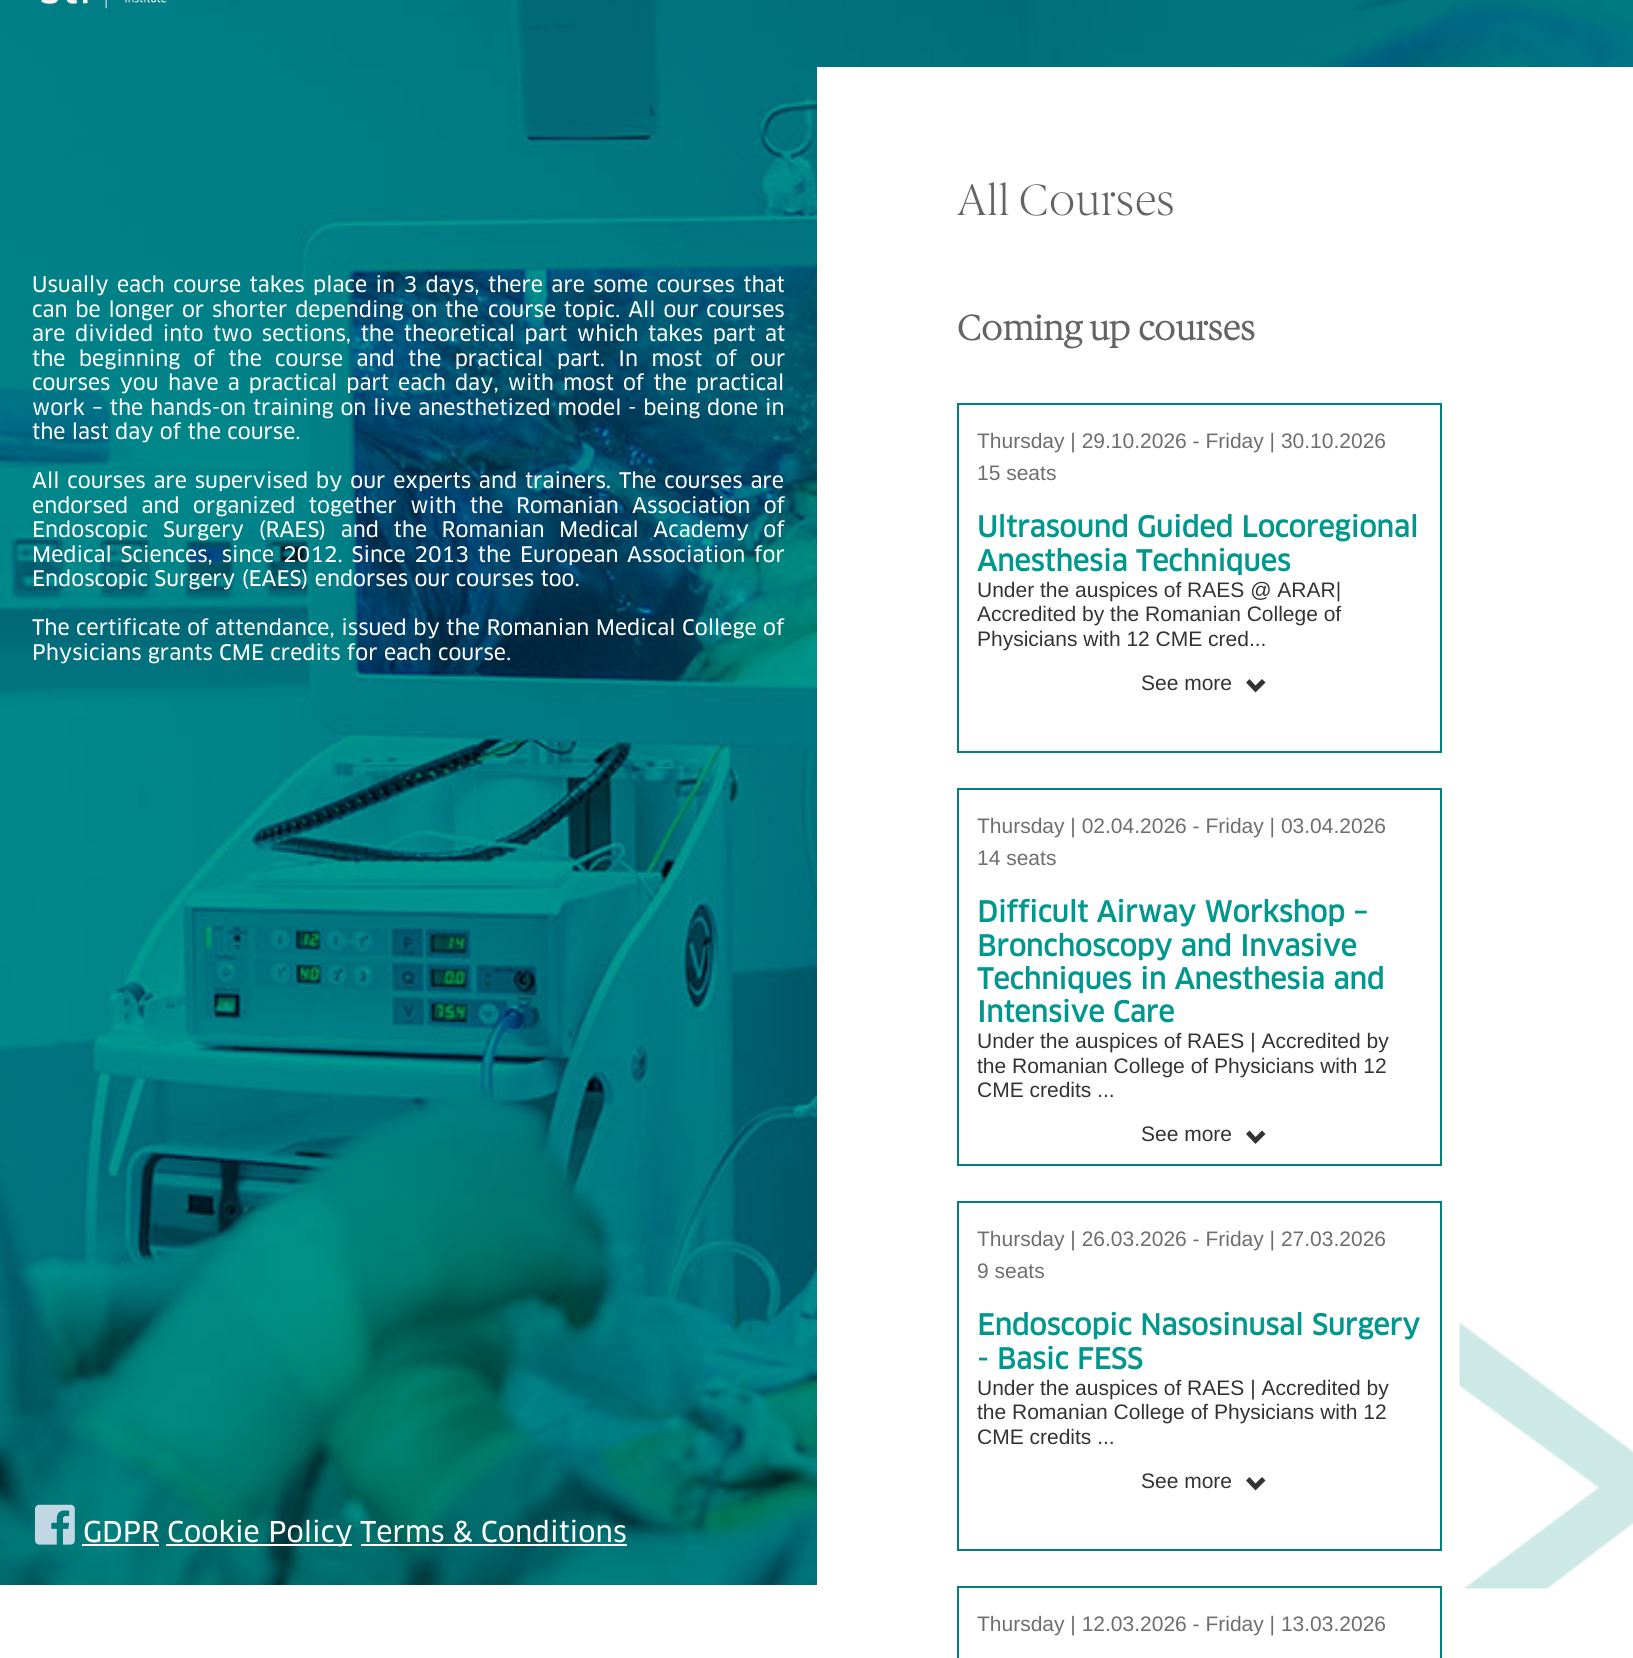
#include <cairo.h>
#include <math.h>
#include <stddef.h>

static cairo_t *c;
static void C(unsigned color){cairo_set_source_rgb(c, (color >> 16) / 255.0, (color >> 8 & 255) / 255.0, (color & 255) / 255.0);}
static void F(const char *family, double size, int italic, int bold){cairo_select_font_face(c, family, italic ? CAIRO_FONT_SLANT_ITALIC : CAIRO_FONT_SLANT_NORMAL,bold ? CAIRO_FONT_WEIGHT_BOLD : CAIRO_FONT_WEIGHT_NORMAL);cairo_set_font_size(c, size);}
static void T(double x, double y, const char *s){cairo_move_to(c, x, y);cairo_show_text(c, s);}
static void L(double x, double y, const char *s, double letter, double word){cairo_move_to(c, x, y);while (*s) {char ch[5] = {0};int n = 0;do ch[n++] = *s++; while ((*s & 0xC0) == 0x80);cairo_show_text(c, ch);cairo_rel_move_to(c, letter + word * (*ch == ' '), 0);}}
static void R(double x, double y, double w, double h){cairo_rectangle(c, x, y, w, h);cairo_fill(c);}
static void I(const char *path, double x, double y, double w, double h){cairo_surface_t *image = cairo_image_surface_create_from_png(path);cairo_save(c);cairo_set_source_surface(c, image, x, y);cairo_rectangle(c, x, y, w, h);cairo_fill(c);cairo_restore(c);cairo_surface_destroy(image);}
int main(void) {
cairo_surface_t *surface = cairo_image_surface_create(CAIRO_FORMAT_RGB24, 1633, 1658);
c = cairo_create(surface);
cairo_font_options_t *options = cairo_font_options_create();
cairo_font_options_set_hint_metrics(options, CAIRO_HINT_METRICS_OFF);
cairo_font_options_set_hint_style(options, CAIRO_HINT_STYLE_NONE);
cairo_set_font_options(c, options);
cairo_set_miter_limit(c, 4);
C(0xffffff);
cairo_paint(c);
I("2.png",0,0,1633,1585);
I("1.png",41,0,126,9);
F("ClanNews",21,0,0);
C(0xffffff);
L(32,292,"Usually each course takes place in 3 days, there are some courses that",0,2.1);
L(32,317,"can be longer or shorter depending on the",0,1.5);
L(488,317,"course topic. All our courses",0,1.5);
T(32,341,"are");
L(75,341,"divided into two sections, the theoretical part which takes part at",0,3.25);
L(32,366,"the beginning of the course and the practical",0,7);
L(557,366,"part. In most of our",0,7);
L(32,390,"courses you",0,2.75);
L(168,390,"have a practical part each day, with most of the practical",0,2.75);
L(32,415,"work – the hands-on training on live anesthetized model",0,.5);
L(628,415,"- being done in",0,.5);
T(32,439,"the last day of the course.");
L(32,488,"All courses are supervised by our experts and trainers. The courses are",0,1.5);
L(32,513,"endorsed and organized together with the",0,7);
L(516,513,"Romanian Association of",0,7);
T(32,537,"Endoscopic");
L(163,537,"Surgery (RAES) and the Romanian Medical Academy of",0,8.25);
L(32,562,"Medical Sciences, since 2012. Since 2013 the European",0,2.5);
L(627,562,"Association for",0,2.5);
T(32,586,"Endoscopic Surgery (EAES) endorses our courses too.");
L(32,635,"The certificate of attendance, issued by the Romanian Medical College of",0,.25);
T(32,660,"Physicians grants CME credits for each course.");
I("3.png",35,1504,40,41);
F("ClanNews",28,0,0);
T(83,1542,"GDPR");
R(82,1544,77,2);
R(166,1544,186,2);
T(167,1542,"Cookie Policy");
T(360,1542,"Terms & Conditions");
R(361,1544,266,2);
R(817,67,816,1518);
I("4.png",1459,1322,174,267);
F("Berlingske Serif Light",43.75,0,0);
C(0x646464);
T(957,215,"All Courses");
F("Berlingske Serif",35,0,1);
T(957,340,"Coming up courses");
cairo_rectangle(c,958,404,483,348);
C(0x008081);
cairo_stroke(c);
F("Liberation Sans",21,0,0);
C(0x6f6e6e);
T(977,448,"Thursday | 29.10.2026 - Friday | 30.10.2026");
T(977,480,"15 seats");
F("ClanNews",28,0,1);
C(0x00978e);
T(977,537,"Ultrasound Guided Locoregional");
T(977,571,"Anesthesia Techniques");
F("Liberation Sans",21,0,0);
C(0x333333);
T(977,597,"Under the auspices of RAES @ ARAR|");
T(977,621,"Accredited by the Romanian College of");
T(977,646,"Physicians with 12 CME cred...");
T(1141,690,"See more");
cairo_new_path(c);
cairo_move_to(c,1265.5,682.5);
cairo_line_to(c,1255.5,692.5);
cairo_line_to(c,1246,682.5);
cairo_line_to(c,1249.5,679);
cairo_line_to(c,1255.5,685.5);
cairo_line_to(c,1262,679);
cairo_close_path(c);
cairo_fill(c);
cairo_rectangle(c,958,789,483,376);
C(0x008081);
cairo_stroke(c);
C(0x6f6e6e);
T(977,833,"Thursday | 02.04.2026 - Friday | 03.04.2026");
T(977,865,"14 seats");
F("ClanNews",28,0,1);
C(0x00978e);
T(977,922,"Difficult Airway Workshop –");
T(977,956,"Bronchoscopy and Invasive");
T(977,989,"Techniques in Anesthesia and");
T(977,1022,"Intensive Care");
F("Liberation Sans",21,0,0);
C(0x333333);
T(977,1048,"Under the auspices of RAES | Accredited by");
T(977,1073,"the Romanian College of Physicians with 12");
T(977,1097,"CME credits ...");
T(1141,1141,"See more");
cairo_new_path(c);
cairo_move_to(c,1265.5,1134);
cairo_line_to(c,1255.5,1144);
cairo_line_to(c,1246,1134);
cairo_line_to(c,1249.5,1130.5);
cairo_line_to(c,1255.5,1137);
cairo_line_to(c,1262,1130.5);
cairo_close_path(c);
cairo_fill(c);
cairo_rectangle(c,958,1202,483,348);
C(0x008081);
cairo_stroke(c);
C(0x6f6e6e);
T(977,1246,"Thursday | 26.03.2026 - Friday | 27.03.2026");
T(977,1278,"9 seats");
F("ClanNews",28,0,1);
C(0x00978e);
T(977,1335,"Endoscopic Nasosinusal Surgery");
T(977,1369,"- Basic FESS");
F("Liberation Sans",21,0,0);
C(0x333333);
T(977,1395,"Under the auspices of RAES | Accredited by");
T(977,1419,"the Romanian College of Physicians with 12");
T(977,1444,"CME credits ...");
T(1141,1488,"See more");
cairo_new_path(c);
cairo_move_to(c,1265.5,1480.5);
cairo_line_to(c,1255.5,1490.5);
cairo_line_to(c,1246,1480.5);
cairo_line_to(c,1249.5,1477);
cairo_line_to(c,1255.5,1483.5);
cairo_line_to(c,1262,1477);
cairo_close_path(c);
cairo_fill(c);
cairo_rectangle(c,958,1587,483,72);
C(0x008081);
cairo_stroke(c);
C(0x6f6e6e);
T(977,1631,"Thursday | 12.03.2026 - Friday | 13.03.2026");
cairo_surface_write_to_png(surface, "o.png");
cairo_font_options_destroy(options);
cairo_destroy(c);
cairo_surface_destroy(surface);
return 0;
}
